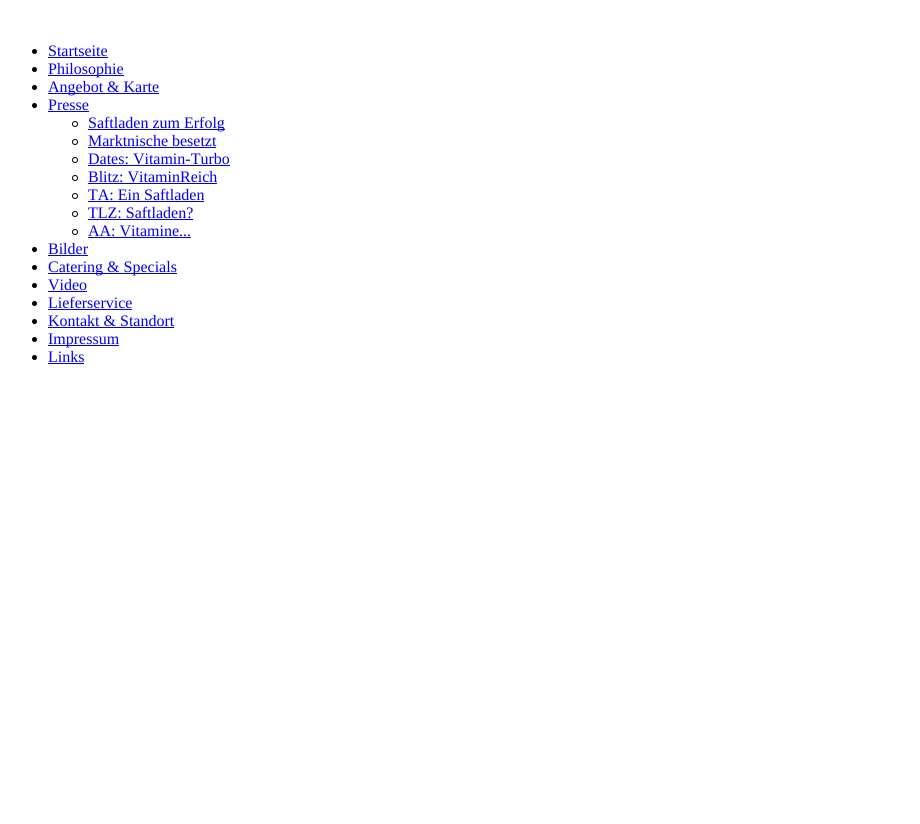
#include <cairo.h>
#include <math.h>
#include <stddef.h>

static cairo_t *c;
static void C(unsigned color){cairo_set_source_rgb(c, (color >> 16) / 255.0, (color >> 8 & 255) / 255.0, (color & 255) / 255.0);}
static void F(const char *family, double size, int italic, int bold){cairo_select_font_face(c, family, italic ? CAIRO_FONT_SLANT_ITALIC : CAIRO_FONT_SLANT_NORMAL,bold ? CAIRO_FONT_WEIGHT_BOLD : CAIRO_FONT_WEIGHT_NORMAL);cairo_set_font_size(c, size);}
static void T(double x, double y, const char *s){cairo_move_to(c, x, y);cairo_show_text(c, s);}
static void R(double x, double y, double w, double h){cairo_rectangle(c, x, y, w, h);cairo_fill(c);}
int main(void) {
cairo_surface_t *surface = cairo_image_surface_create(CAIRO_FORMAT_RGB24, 920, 824);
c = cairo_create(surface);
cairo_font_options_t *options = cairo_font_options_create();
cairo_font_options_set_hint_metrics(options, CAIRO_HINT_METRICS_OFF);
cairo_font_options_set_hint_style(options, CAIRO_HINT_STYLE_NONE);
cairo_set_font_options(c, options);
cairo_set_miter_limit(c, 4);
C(0xffffff);
cairo_paint(c);
C(0x000000);
cairo_arc(c,34.5,51.5,2.5,0,2 * M_PI);
cairo_fill(c);
F("Liberation Serif",16,0,0);
C(0x0000ee);
T(48,56,"Startseite");
R(48,57,60,1);
C(0x000000);
cairo_new_path(c);
cairo_arc(c,34.5,69.5,2.5,0,2 * M_PI);
cairo_fill(c);
C(0x0000ee);
R(48,75,76,1);
T(48,74,"Philosophie");
C(0x000000);
cairo_new_path(c);
cairo_arc(c,34.5,87.5,2.5,0,2 * M_PI);
cairo_fill(c);
C(0x0000ee);
R(48,93,111,1);
T(48,92,"Angebot & Karte");
C(0x000000);
cairo_new_path(c);
cairo_arc(c,34.5,105.5,2.5,0,2 * M_PI);
cairo_fill(c);
C(0x0000ee);
T(48,110,"Presse");
R(48,111,41,1);
cairo_new_path(c);
cairo_arc(c,75,124,2.5,0,2 * M_PI);
C(0x000000);
cairo_set_line_width(c,1);
cairo_stroke(c);
C(0x0000ee);
R(88,129,137,1);
T(88,128,"Saftladen zum Erfolg");
cairo_new_path(c);
cairo_arc(c,75,142,2.5,0,2 * M_PI);
C(0x000000);
cairo_stroke(c);
C(0x0000ee);
T(88,146,"Marktnische besetzt");
R(88,147,128,1);
cairo_new_path(c);
cairo_arc(c,75,160,2.5,0,2 * M_PI);
C(0x000000);
cairo_stroke(c);
C(0x0000ee);
T(88,164,"Dates: Vitamin-Turbo");
R(88,165,142,1);
cairo_new_path(c);
cairo_arc(c,75,178,2.5,0,2 * M_PI);
C(0x000000);
cairo_stroke(c);
C(0x0000ee);
T(88,182,"Blitz: VitaminReich");
R(88,183,129,1);
cairo_new_path(c);
cairo_arc(c,75,196,2.5,0,2 * M_PI);
C(0x000000);
cairo_stroke(c);
C(0x0000ee);
T(88,200,"TA: Ein Saftladen");
R(88,201,116,1);
cairo_new_path(c);
cairo_arc(c,75,214,2.5,0,2 * M_PI);
C(0x000000);
cairo_stroke(c);
C(0x0000ee);
T(88,218,"TLZ: Saftladen?");
R(88,219,105,1);
cairo_new_path(c);
cairo_arc(c,75,232,2.5,0,2 * M_PI);
C(0x000000);
cairo_stroke(c);
C(0x0000ee);
T(88,236,"AA: Vitamine...");
R(88,237,103,1);
C(0x000000);
cairo_new_path(c);
cairo_arc(c,34.5,249.5,2.5,0,2 * M_PI);
cairo_fill(c);
C(0x0000ee);
T(48,254,"Bilder");
R(48,255,40,1);
C(0x000000);
cairo_new_path(c);
cairo_arc(c,34.5,267.5,2.5,0,2 * M_PI);
cairo_fill(c);
C(0x0000ee);
R(48,273,129,1);
T(48,272,"Catering & Specials");
C(0x000000);
cairo_new_path(c);
cairo_arc(c,34.5,285.5,2.5,0,2 * M_PI);
cairo_fill(c);
C(0x0000ee);
T(48,290,"Video");
R(48,291,39,1);
C(0x000000);
cairo_new_path(c);
cairo_arc(c,34.5,303.5,2.5,0,2 * M_PI);
cairo_fill(c);
C(0x0000ee);
T(48,308,"Lieferservice");
R(48,309,84,1);
C(0x000000);
cairo_new_path(c);
cairo_arc(c,34.5,321.5,2.5,0,2 * M_PI);
cairo_fill(c);
C(0x0000ee);
T(48,326,"Kontakt & Standort");
R(48,327,126,1);
C(0x000000);
cairo_new_path(c);
cairo_arc(c,34.5,339.5,2.5,0,2 * M_PI);
cairo_fill(c);
C(0x0000ee);
R(48,345,71,1);
T(48,344,"Impressum");
C(0x000000);
cairo_new_path(c);
cairo_arc(c,34.5,357.5,2.5,0,2 * M_PI);
cairo_fill(c);
C(0x0000ee);
T(48,362,"Links");
R(48,363,36,1);
cairo_surface_write_to_png(surface, "o.png");
cairo_font_options_destroy(options);
cairo_destroy(c);
cairo_surface_destroy(surface);
return 0;
}
